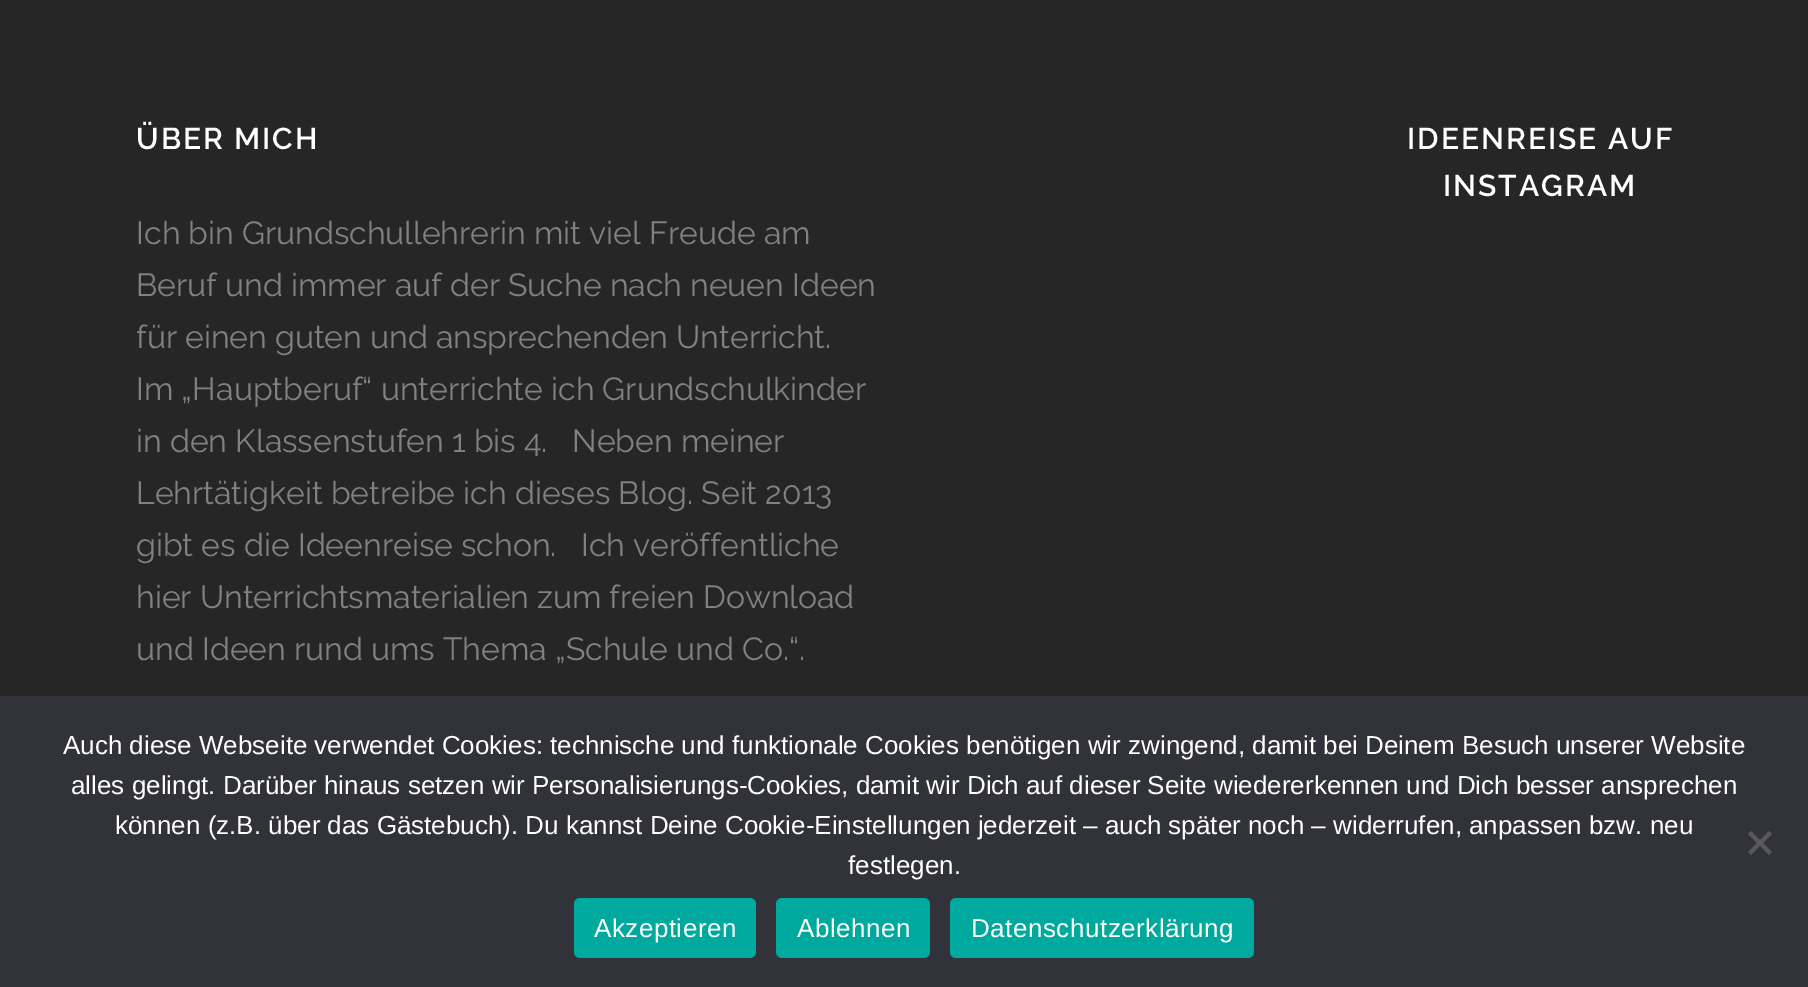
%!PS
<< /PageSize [1808 987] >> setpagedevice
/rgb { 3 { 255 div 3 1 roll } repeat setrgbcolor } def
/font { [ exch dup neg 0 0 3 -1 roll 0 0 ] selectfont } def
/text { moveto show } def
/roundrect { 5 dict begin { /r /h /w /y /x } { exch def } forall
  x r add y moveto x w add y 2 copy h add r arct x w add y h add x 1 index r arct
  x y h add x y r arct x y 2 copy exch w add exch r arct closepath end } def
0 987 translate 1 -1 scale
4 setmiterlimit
38 38 38 rgb
0 0 1808 987 rectfill
50 50 58 rgb
0 696 1808 291 rectfill
89 89 93 rgb
1769 831 moveto 3 3 rlineto -21 21 rlineto -3 -3 rlineto closepath fill
1748 834 moveto 3 -3 rlineto 21 21 rlineto -3 3 rlineto closepath fill
0 169 157 rgb
574 898 182 60 6 roundrect fill
776 898 154 60 6 roundrect fill
950 898 304 60 6 roundrect fill
/Raleway-SemiBold 30 font
255 255 255 rgb
136 149 moveto 2 0 (ÜBER MICH) ashow
/Raleway-Regular 32 font
129 129 129 rgb
(Ich bin Grundschullehrerin mit viel Freude am) 136 244 text
(Beruf und immer auf der Suche nach neuen Ideen) 136 296 text
(für einen guten und ansprechenden Unterricht.) 136 348 text
(Im „Hauptberuf“ unterrichte ich Grundschulkinder) 136 400 text
(in den Klassenstufen 1 bis 4.   Neben meiner) 136 452 text
(Lehrtätigkeit betreibe ich dieses Blog. Seit 2013) 136 504 text
(gibt es die Ideenreise schon.   Ich veröffentliche) 136 556 text
(hier Unterrichtsmaterialien zum freien Download) 136 608 text
(und Ideen rund ums Thema „Schule und Co.“.) 136 660 text
/Raleway-SemiBold 30 font
255 255 255 rgb
1407 149 moveto 2 0 (IDEENREISE AUF) ashow
1443 196 moveto 2 0 (INSTAGRAM) ashow
/LiberationSans-Regular 26 font
(Auch diese Webseite verwendet Cookies: technische und funktionale Cookies benötigen wir zwingend, damit bei Deinem Besuch unserer Website) 63 754 text
(alles gelingt. Darüber hinaus setzen wir Personalisierungs-Cookies, damit wir Dich auf dieser Seite wiedererkennen und Dich besser ansprechen) 71 794 text
(können \(z.B. über das Gästebuch\). Du kannst Deine Cookie-Einstellungen jederzeit – auch später noch – widerrufen, anpassen bzw. neu) 115 834 text
(festlegen.) 848 874 text
594 937 moveto 0.5 0 (Akzeptieren) ashow
797 937 moveto 0.5 0 (Ablehnen) ashow
971 937 moveto 0.5 0 (Datenschutzerklärung) ashow
showpage
